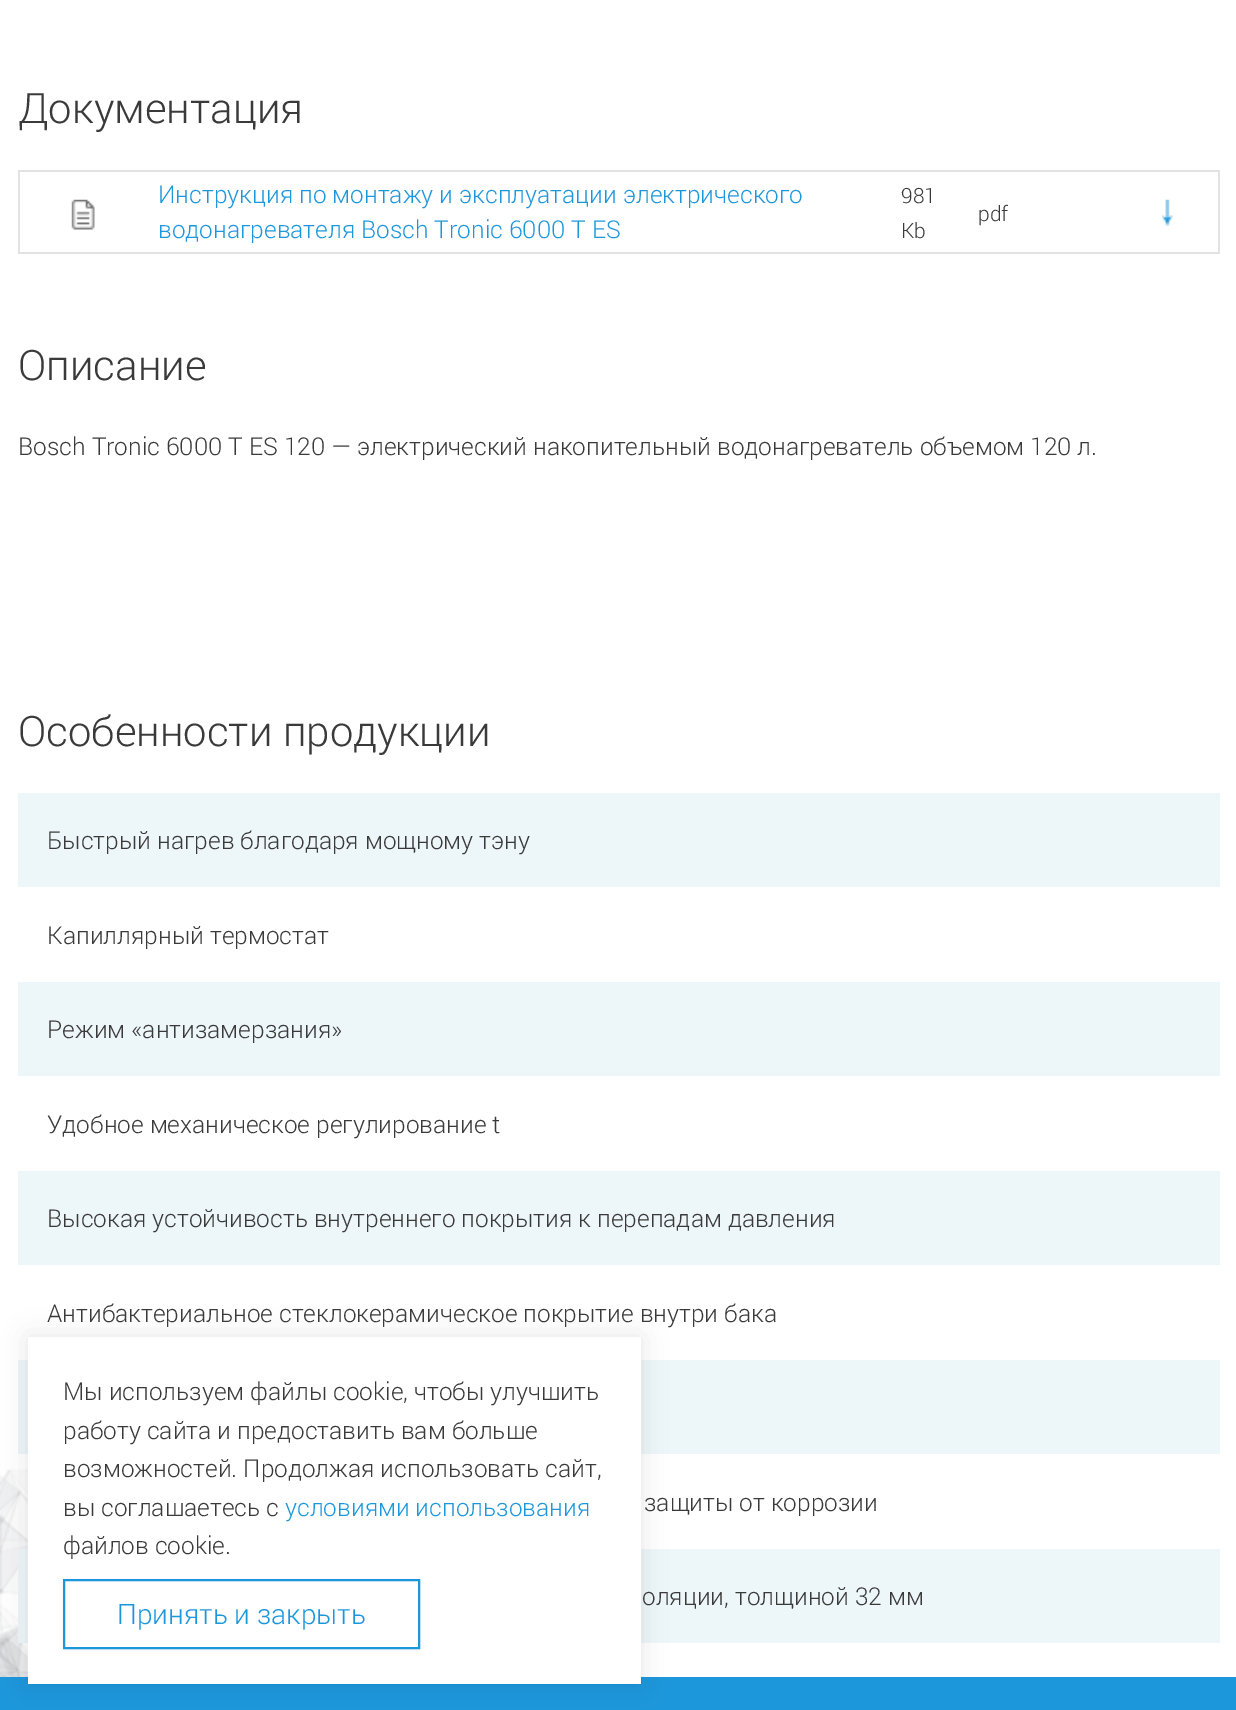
%!PS
<< /PageSize [1236 1710] /PageUsesTransparency true >> setpagedevice
/rgb { 3 { 255 div 3 1 roll } repeat setrgbcolor } def
/font { [ exch dup neg 0 0 3 -1 roll 0 0 ] selectfont } def
/text { moveto show } def
/alpha { dup .setfillconstantalpha .setstrokeconstantalpha } def
/roundrect { 5 dict begin { /r /h /w /y /x } { exch def } forall
  x r add y moveto x w add y 2 copy h add r arct x w add y h add x 1 index r arct
  x y h add x y r arct x y 2 copy exch w add exch r arct closepath end } def
/shadow { 12 dict begin { /a /b /q /h /w /y /x } { exch def } forall gsave /was 0 def
  9 -2 -9 { dup b mul 4 div /e exch def 1 sub .425 mul 2.718 exch exp 1 add a .99 .min exch div /now exch def
    1 1 now sub 1 was sub div sub alpha /was now def
    w h .min e 2 mul add 0 gt { x e sub y e sub w e 2 mul add h e 2 mul add
      q e add b .6 mul add w h .min 2 div e add .min 0 .max roundrect fill } if } for grestore end } def
/picture { 5 dict begin { /h /w /y /x /name } { exch def } forall
  gsave x y translate w h scale
  w h 8 [w 0 0 h 0 0] name (r) file false 3 colorimage grestore end } def
0 .pushpdf14devicefilter
0 1710 translate 1 -1 scale
4 setmiterlimit
255 255 255 rgb
0 0 1236 1710 rectfill
226 226 226 rgb
1218 170 2 84 rectfill
18 252 1202 2 rectfill
18 170 2 84 rectfill
18 170 1202 2 rectfill
(img_01.rgb) 1162 199 11 27 picture
(img_02.rgb) 71 199 24 31 picture
(img_03.rgb) 0 1469 28 208 picture
237 246 249 rgb
18 793 1202 94 rectfill
18 982 1202 94 rectfill
18 1171 1202 94 rectfill
18 1360 1202 94 rectfill
18 1549 1202 94 rectfill
29 151 219 rgb
0 1677 1236 33 rectfill
0 0 0 rgb
28 1337 613 347 0 13 0.1 shadow
255 255 255 rgb
28 1337 613 347 rectfill
0 0 0 rgb
63 1580 357 70 0 2 0.05 shadow
255 255 255 rgb
64 1580 moveto 355 0 rlineto 0 68 rlineto -355 0 rlineto closepath gsave fill grestore
29 151 219 rgb
2 setlinewidth
stroke
/Roboto-Light 42 font
58 58 58 rgb
(Документация) 18 123 text
/Roboto-Light 24.5 font
29 151 219 rgb
(Инструкция по монтажу и эксплуатации электрического) 158 203 text
(водонагревателя Bosch Tronic 6000 T ES) 158 238 text
/Roboto-Light 21 font
58 58 58 rgb
(981) 901 203 text
(Kb) 901 238 text
(pdf) 978 221 text
/Roboto-Light 42 font
(Описание) 18 380 text
/Roboto-Light 24.5 font
(Bosch Tronic 6000 T ES 120 — электрический накопительный водонагреватель объемом 120 л.) 18 455 text
/Roboto-Light 42 font
(Особенности продукции) 18 746 text
/Roboto-Light 24.5 font
(Быстрый нагрев благодаря мощному тэну) 47 849 text
(Капиллярный термостат) 47 944 text
(Режим «антизамерзания») 47 1038 text
(Удобное механическое регулирование t) 47 1133 text
(Высокая устойчивость внутреннего покрытия к перепадам давления) 47 1227 text
(Антибактериальное cтеклокерамическое покрытие внутри бака) 47 1322 text
(защиты от коррозии) 644 1511 text
(оляции, толщиной 32 мм) 642 1605 text
(Мы используем файлы cookie, чтобы улучшить) 63 1400 text
(работу сайта и предоставить вам больше) 63 1439 text
(возможностей. Продолжая использовать сайт,) 63 1477 text
(вы соглашаетесь с) 63 1516 text
29 151 219 rgb
(условиями использования) 285 1516 text
58 58 58 rgb
(файлов cookie.) 63 1554 text
/Roboto-Light 28 font
29 151 219 rgb
(Принять и закрыть) 117 1624 text
.poppdf14devicefilter showpage
